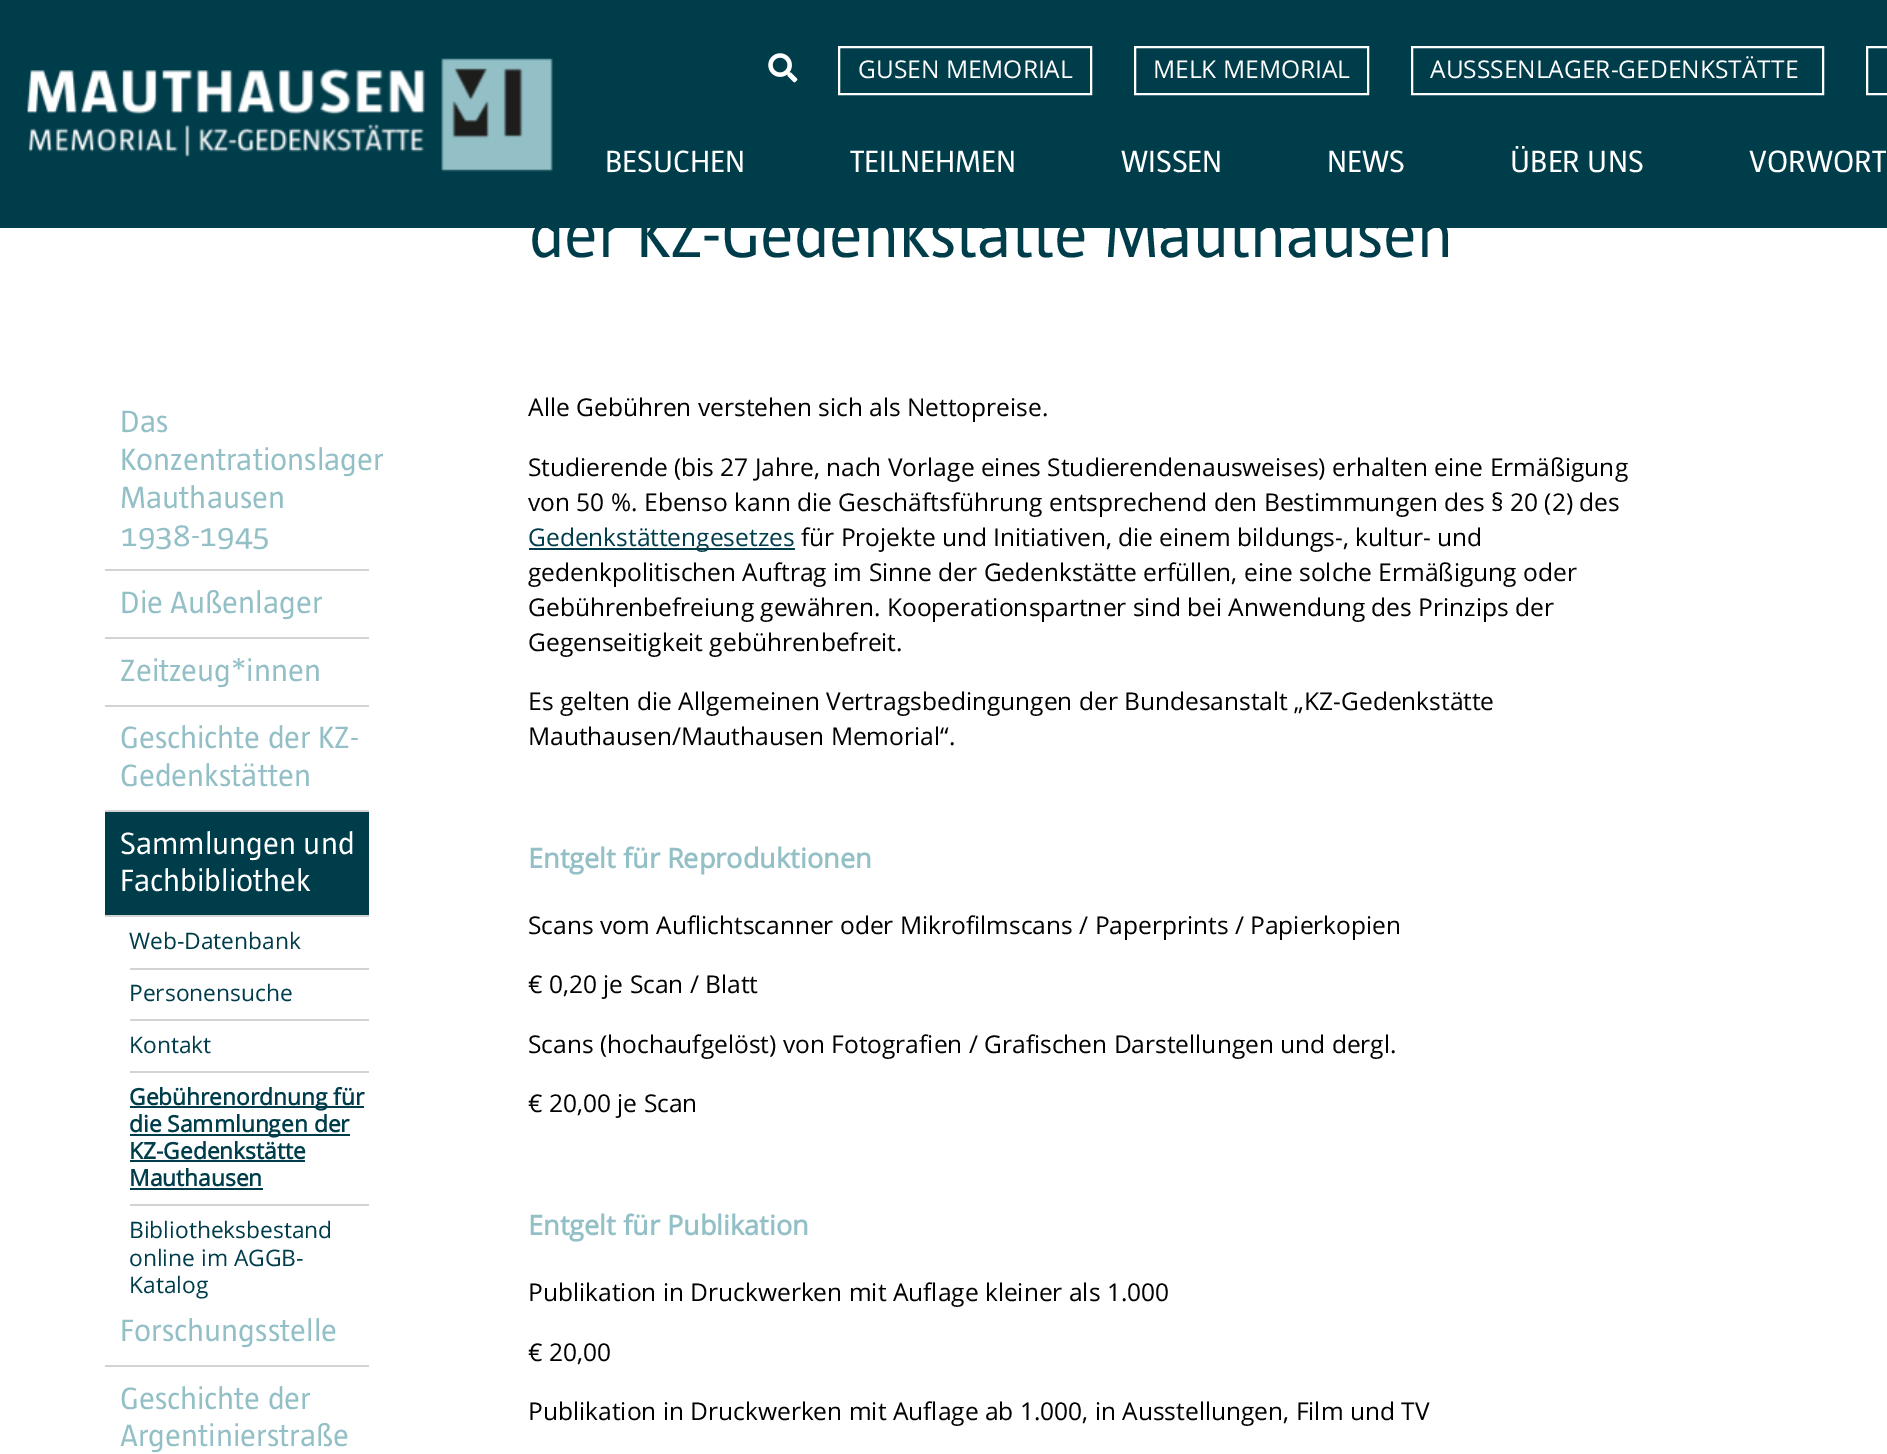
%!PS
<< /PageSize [1887 1454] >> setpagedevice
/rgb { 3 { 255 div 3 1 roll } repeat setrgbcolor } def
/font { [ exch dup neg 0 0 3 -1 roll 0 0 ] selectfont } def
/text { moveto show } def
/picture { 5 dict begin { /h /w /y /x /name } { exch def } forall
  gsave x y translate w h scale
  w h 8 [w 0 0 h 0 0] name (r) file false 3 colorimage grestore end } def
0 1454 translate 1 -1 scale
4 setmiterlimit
255 255 255 rgb
0 0 1887 1454 rectfill
0 61 75 rgb
0 0 1887 228 rectfill
(img_01.rgb) 27 58 526 114 picture
(img_02.rgb) 768 53 30 30 picture
255 255 255 rgb
2 setlinewidth
839 47 252 47 rectstroke
1135 47 233 47 rectstroke
1412 47 411 47 rectstroke
1867 47 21 47 rectstroke
211 211 211 rgb
105 569 264 2 rectfill
105 637 264 2 rectfill
105 705 264 2 rectfill
105 810 264 2 rectfill
0 61 75 rgb
105 812 264 103 rectfill
211 211 211 rgb
105 915 264 2 rectfill
130 968 239 2 rectfill
130 1019 239 2 rectfill
130 1071 239 2 rectfill
130 1204 239 2 rectfill
0 61 75 rgb
130 1106 234 2 rectfill
130 1134 220 2 rectfill
130 1160 175 2 rectfill
130 1188 133 2 rectfill
211 211 211 rgb
105 1365 264 2 rectfill
0 61 75 rgb
529 548 266 2 rectfill
/OpenSans-Regular 24.5 font
255 255 255 rgb
(GUSEN MEMORIAL) 858 78 text
(MELK MEMORIAL) 1153 78 text
(AUSSSENLAGER-GEDENKSTÄTTE) 1430 78 text
/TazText-Regular 31.5 font
(BESUCHEN) 605 172 text
(TEILNEHMEN) 850 172 text
(WISSEN) 1121 172 text
(NEWS) 1327 172 text
(ÜBER UNS) 1510 172 text
(VORWORT) 1749 172 text
/TazText-Regular 66.5 font
0 61 75 rgb
(der KZ-Gedenkstätte Mauthausen) 529 257 text
/TazText-Regular 31.5 font
147 191 198 rgb
(Das) 120 432 text
(Konzentrationslager) 120 470 text
(Mauthausen) 120 508 text
(1938-1945) 120 546 text
(Die Außenlager) 120 613 text
(Zeitzeug*innen) 120 681 text
(Geschichte der KZ-) 120 748 text
(Gedenkstätten) 120 786 text
255 255 255 rgb
(Sammlungen und) 120 854 text
(Fachbibliothek) 120 891 text
/OpenSans-Regular 22.75 font
0 61 75 rgb
(Web-Datenbank) 129 949 text
(Personensuche) 129 1001 text
(Kontakt) 129 1053 text
/OpenSans-Bold 22.75 font
(Gebührenordnung für) 129 1105 text
(die Sammlungen der) 129 1132 text
(KZ-Gedenkstätte) 129 1159 text
(Mauthausen) 129 1186 text
/OpenSans-Regular 22.75 font
(Bibliotheksbestand) 129 1238 text
(online im AGGB-) 129 1266 text
(Katalog) 129 1293 text
/TazText-Regular 31.5 font
147 191 198 rgb
(Forschungsstelle) 120 1341 text
(Geschichte der) 120 1409 text
(Argentinierstraße) 120 1446 text
/OpenSans-Regular 24.5 font
0 0 0 rgb
(Alle Gebühren verstehen sich als Nettopreise.) 528 416 text
(Studierende \(bis 27 Jahre, nach Vorlage eines Studierendenausweises\) erhalten eine Ermäßigung) 528 476 text
(von 50 %. Ebenso kann die Geschäftsführung entsprechend den Bestimmungen des § 20 \(2\) des) 528 511 text
0 61 75 rgb
(Gedenkstättengesetzes) 528 546 text
0 0 0 rgb
(für Projekte und Initiativen, die einem bildungs-, kultur- und) 801 546 text
(gedenkpolitischen Auftrag im Sinne der Gedenkstätte erfüllen, eine solche Ermäßigung oder) 528 581 text
(Gebührenbefreiung gewähren. Kooperationspartner sind bei Anwendung des Prinzips der) 528 616 text
(Gegenseitigkeit gebührenbefreit.) 528 651 text
(Es gelten die Allgemeinen Vertragsbedingungen der Bundesanstalt „KZ-Gedenkstätte) 528 710 text
(Mauthausen/Mauthausen Memorial“.) 528 745 text
/OpenSans-Bold 27.1 font
147 191 198 rgb
(Entgelt für Reproduktionen) 528 868 text
/OpenSans-Regular 24.5 font
0 0 0 rgb
(Scans vom Auflichtscanner oder Mikrofilmscans / Paperprints / Papierkopien) 528 934 text
(€ 0,20 je Scan / Blatt) 528 993 text
(Scans \(hochaufgelöst\) von Fotografien / Grafischen Darstellungen und dergl.) 528 1053 text
(€ 20,00 je Scan) 528 1112 text
/OpenSans-Bold 27.1 font
147 191 198 rgb
(Entgelt für Publikation) 528 1235 text
/OpenSans-Regular 24.5 font
0 0 0 rgb
(Publikation in Druckwerken mit Auflage kleiner als 1.000) 528 1301 text
(€ 20,00) 528 1361 text
(Publikation in Druckwerken mit Auflage ab 1.000, in Ausstellungen, Film und TV) 528 1420 text
showpage
